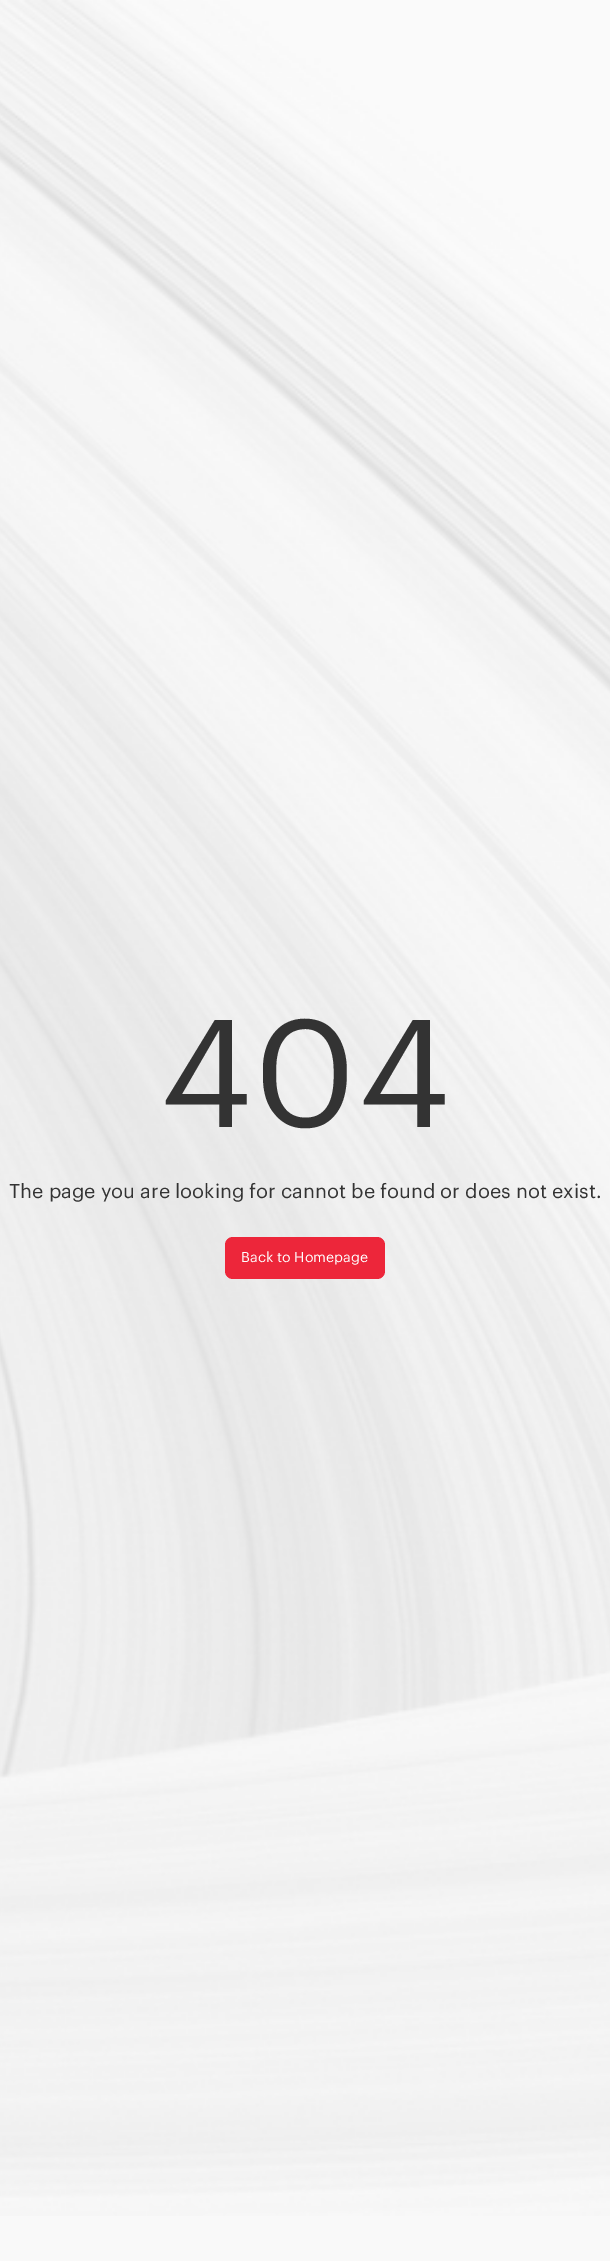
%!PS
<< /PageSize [610 2261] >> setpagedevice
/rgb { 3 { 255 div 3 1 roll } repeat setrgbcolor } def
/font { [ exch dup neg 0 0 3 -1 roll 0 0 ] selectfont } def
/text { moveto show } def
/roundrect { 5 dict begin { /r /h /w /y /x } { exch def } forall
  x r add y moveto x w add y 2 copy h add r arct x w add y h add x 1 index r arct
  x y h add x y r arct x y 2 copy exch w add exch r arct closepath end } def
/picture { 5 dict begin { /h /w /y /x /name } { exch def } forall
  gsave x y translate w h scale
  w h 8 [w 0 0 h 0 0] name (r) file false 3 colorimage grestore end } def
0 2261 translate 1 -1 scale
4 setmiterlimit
249 249 249 rgb
0 0 610 2261 rectfill
(img_01.rgb) 0 0 610 2216 picture
237 38 58 rgb
225 1237 160 42 8 roundrect fill
/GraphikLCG-Regular 150 font
51 51 51 rgb
(404) 159 1127 text
/GraphikLCG-Regular 19.5 font
(The page you are looking for cannot be found or does not exist.) 9 1198 text
/GraphikLCG-Regular 14 font
255 255 255 rgb
(Back to Homepage) 241 1262 text
showpage
